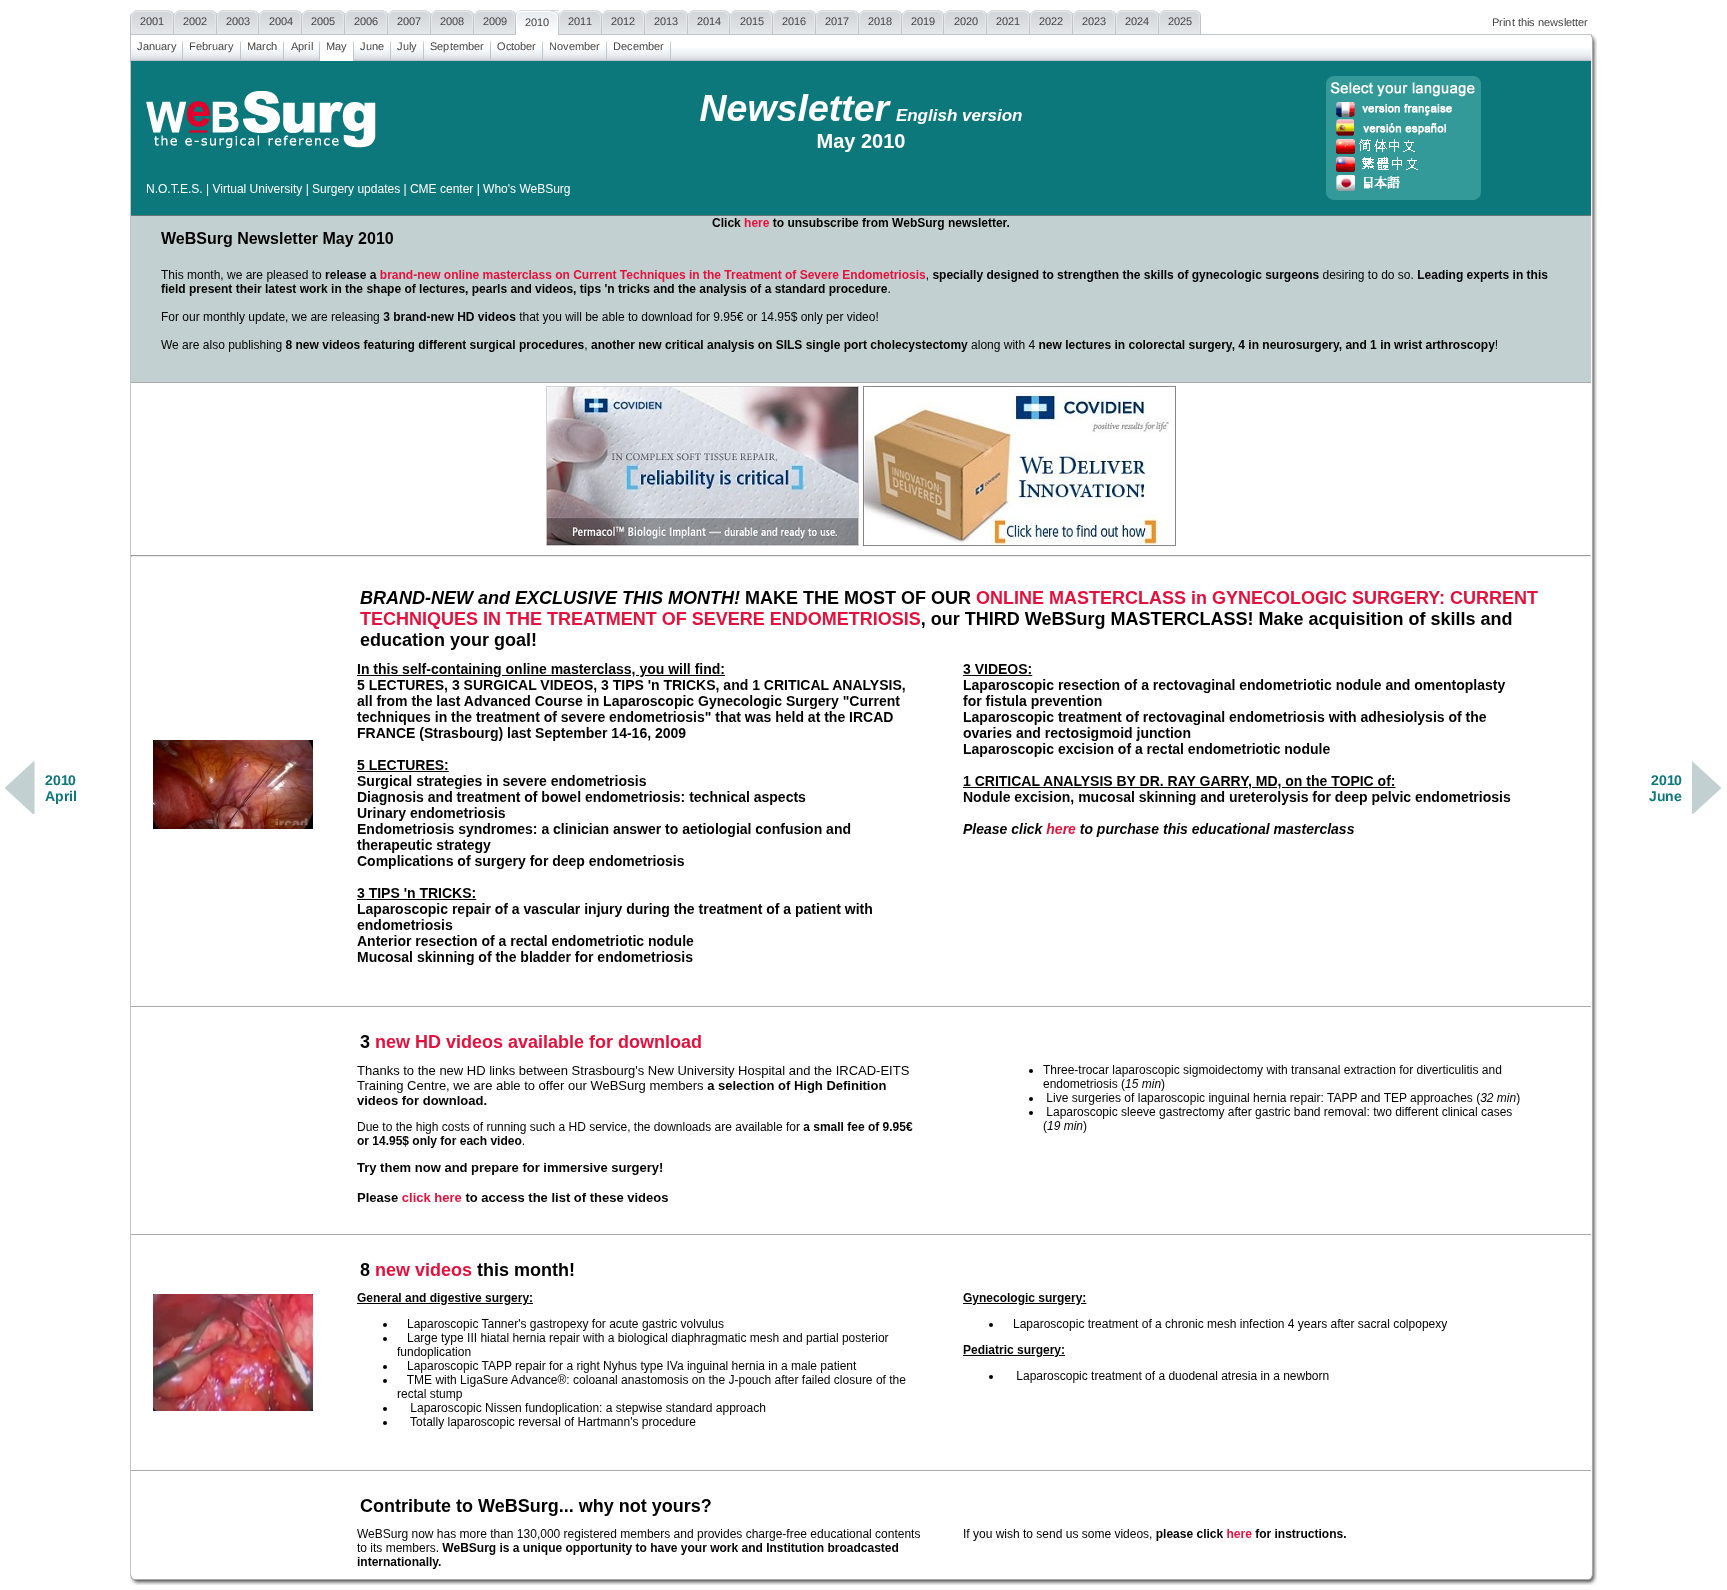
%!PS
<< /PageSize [1727 1590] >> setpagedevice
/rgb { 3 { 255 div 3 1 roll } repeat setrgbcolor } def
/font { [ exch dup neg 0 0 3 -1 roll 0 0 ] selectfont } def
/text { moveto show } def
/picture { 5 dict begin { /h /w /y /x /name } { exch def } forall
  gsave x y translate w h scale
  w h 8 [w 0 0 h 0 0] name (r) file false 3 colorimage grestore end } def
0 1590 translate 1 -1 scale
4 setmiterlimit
255 255 255 rgb
0 0 1727 1590 rectfill
(img_01.rgb) 5 761 30 53 picture
192 197 202 rgb
130 34 386 1 rectfill
(img_02.rgb) 130 13 1 21 picture
(img_03.rgb) 131 10 37 24 picture
(img_04.rgb) 168 10 6 24 picture
(img_03.rgb) 174 10 37 24 picture
(img_04.rgb) 211 10 6 24 picture
(img_05.rgb) 217 10 36 24 picture
(img_04.rgb) 253 10 6 24 picture
(img_03.rgb) 259 10 37 24 picture
(img_04.rgb) 296 10 6 24 picture
(img_03.rgb) 302 10 37 24 picture
(img_04.rgb) 339 10 6 24 picture
(img_03.rgb) 345 10 37 24 picture
(img_04.rgb) 382 10 6 24 picture
(img_03.rgb) 388 10 37 24 picture
(img_04.rgb) 425 10 6 24 picture
(img_03.rgb) 431 10 37 24 picture
(img_04.rgb) 468 10 6 24 picture
(img_05.rgb) 474 10 36 24 picture
(img_04.rgb) 510 10 6 24 picture
(img_06.rgb) 516 10 43 19 picture
(img_07.rgb) 551 11 8 24 picture
(img_03.rgb) 559 10 37 24 picture
559 34 1032 1 rectfill
(img_04.rgb) 596 10 6 24 picture
(img_03.rgb) 602 10 37 24 picture
(img_04.rgb) 639 10 6 24 picture
(img_03.rgb) 645 10 37 24 picture
(img_04.rgb) 682 10 6 24 picture
(img_05.rgb) 688 10 36 24 picture
(img_04.rgb) 724 10 6 24 picture
(img_03.rgb) 730 10 37 24 picture
(img_04.rgb) 767 10 6 24 picture
(img_03.rgb) 773 10 37 24 picture
(img_04.rgb) 810 10 6 24 picture
(img_03.rgb) 816 10 37 24 picture
(img_04.rgb) 853 10 6 24 picture
(img_03.rgb) 859 10 37 24 picture
(img_04.rgb) 896 10 6 24 picture
(img_05.rgb) 902 10 36 24 picture
(img_04.rgb) 938 10 6 24 picture
(img_03.rgb) 944 10 37 24 picture
(img_04.rgb) 981 10 6 24 picture
(img_03.rgb) 987 10 37 24 picture
(img_04.rgb) 1024 10 6 24 picture
(img_03.rgb) 1030 10 37 24 picture
(img_04.rgb) 1067 10 6 24 picture
(img_03.rgb) 1073 10 37 24 picture
(img_04.rgb) 1110 10 6 24 picture
(img_03.rgb) 1116 10 37 24 picture
(img_04.rgb) 1153 10 6 24 picture
(img_05.rgb) 1159 10 36 24 picture
(img_04.rgb) 1195 10 6 24 picture
(img_08.rgb) 131 48 1460 13 picture
130 35 1 1540 rectfill
(img_09.rgb) 182 41 1 20 picture
(img_09.rgb) 240 41 1 20 picture
(img_09.rgb) 283 41 1 20 picture
(img_09.rgb) 319 41 1 20 picture
(img_09.rgb) 353 41 1 20 picture
255 255 255 rgb
320 48 33 13 rectfill
(img_09.rgb) 390 41 1 20 picture
(img_09.rgb) 423 41 1 20 picture
(img_09.rgb) 490 41 1 20 picture
(img_09.rgb) 542 41 1 20 picture
(img_09.rgb) 606 41 1 20 picture
(img_09.rgb) 670 41 1 20 picture
(img_10.rgb) 131 61 1460 1508 picture
(img_11.rgb) 1591 43 6 1532 picture
(img_12.rgb) 1591 34 6 9 picture
(img_13.rgb) 1692 761 30 53 picture
(img_14.rgb) 138 1579 1451 6 picture
(img_15.rgb) 130 1575 8 10 picture
(img_16.rgb) 1589 1575 8 10 picture
/LiberationSans-Bold 14 font
12 120 123 rgb
(2010) 45 785 text
(April) 45 801 text
/LiberationSans-Regular 11 font
68 68 68 rgb
(2001) 140 25 text
(2002) 183 25 text
(2003) 226 25 text
(2004) 269 25 text
(2005) 311 25 text
(2006) 354 25 text
(2007) 397 25 text
(2008) 440 25 text
(2009) 483 25 text
(2010) 525 26 text
(2011) 568 25 text
(2012) 611 25 text
(2013) 654 25 text
(2014) 697 25 text
(2015) 740 25 text
(2016) 782 25 text
(2017) 825 25 text
(2018) 868 25 text
(2019) 911 25 text
(2020) 954 25 text
(2021) 996 25 text
(2022) 1039 25 text
(2023) 1082 25 text
(2024) 1125 25 text
(2025) 1168 25 text
(Print this newsletter) 1492 26 text
(January) 137 50 text
(February) 189 50 text
(March) 247 50 text
(April) 291 50 text
(May) 326 50 text
(June) 360 50 text
(July) 397 50 text
(September) 430 50 text
(October) 497 50 text
(November) 549 50 text
(December) 613 50 text
/LiberationSans-Bold 14 font
12 120 123 rgb
(2010) 1651 785 text
(June) 1649 801 text
showpage
